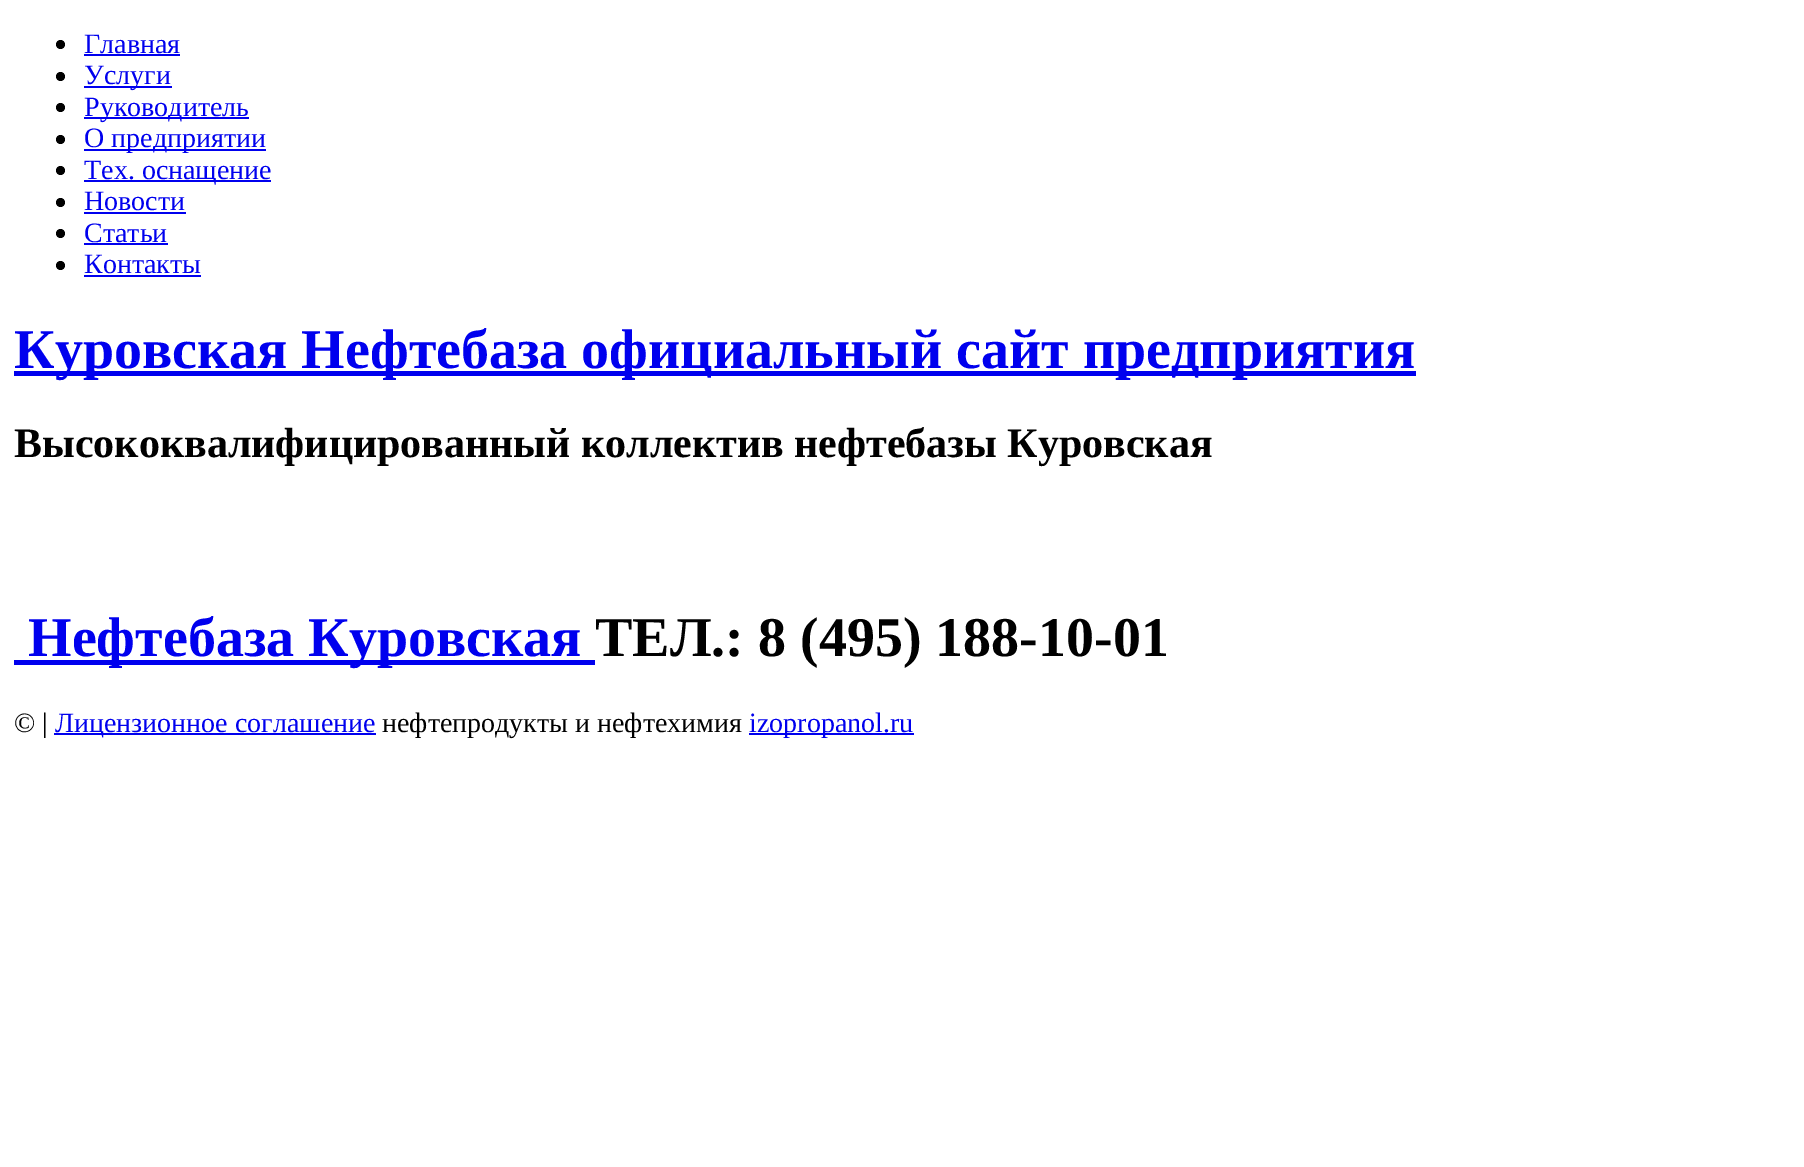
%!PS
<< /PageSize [1804 1167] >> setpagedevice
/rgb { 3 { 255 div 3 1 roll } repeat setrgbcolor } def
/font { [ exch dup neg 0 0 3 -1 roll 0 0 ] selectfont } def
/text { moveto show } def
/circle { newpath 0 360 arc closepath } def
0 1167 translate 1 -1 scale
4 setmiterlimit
255 255 255 rgb
0 0 1804 1167 rectfill
0 0 0 rgb
60.5 44.5 4.5 circle fill
0 0 238 rgb
84 54 96 2 rectfill
0 0 0 rgb
60.5 76.5 4.5 circle fill
0 0 238 rgb
84 86 88 2 rectfill
0 0 0 rgb
60.5 107.5 4.5 circle fill
0 0 238 rgb
84 117 165 2 rectfill
0 0 0 rgb
60.5 139.5 4.5 circle fill
0 0 238 rgb
84 149 182 2 rectfill
0 0 0 rgb
60.5 170.5 4.5 circle fill
0 0 238 rgb
84 180 187 2 rectfill
0 0 0 rgb
60.5 202.5 4.5 circle fill
0 0 238 rgb
84 212 102 2 rectfill
0 0 0 rgb
60.5 233.5 4.5 circle fill
0 0 238 rgb
84 243 84 2 rectfill
0 0 0 rgb
60.5 265.5 4.5 circle fill
0 0 238 rgb
84 275 117 2 rectfill
14 371 1402 5 rectfill
14 660 581 5 rectfill
54 733 322 2 rectfill
749 733 165 2 rectfill
/LiberationSerif-Regular 28 font
(Главная) 84 53 text
(Услуги) 84 84 text
(Руководитель) 84 116 text
(O предприятии) 84 147 text
(Тех. оснащение) 84 179 text
(Новости) 84 210 text
(Статьи) 84 242 text
(Контакты) 84 273 text
/LiberationSerif-Bold 56 font
(Куровская Нефтебаза официальный сайт предприятия) 14 368 text
/LiberationSerif-Bold 42 font
0 0 0 rgb
(Высококвалифицированный коллектив нефтебазы Куровская) 14 457 text
/LiberationSerif-Bold 56 font
0 0 238 rgb
(Нефтебаза Куровская) 28 656 text
0 0 0 rgb
(ТЕЛ.: 8 \(495\) 188-10-01) 595 656 text
/LiberationSerif-Regular 28 font
(© |) 14 732 text
0 0 238 rgb
(Лицензионное соглашение) 55 732 text
0 0 0 rgb
(нефтепродукты и нефтехимия) 382 732 text
0 0 238 rgb
(izopropanol.ru) 749 732 text
showpage
